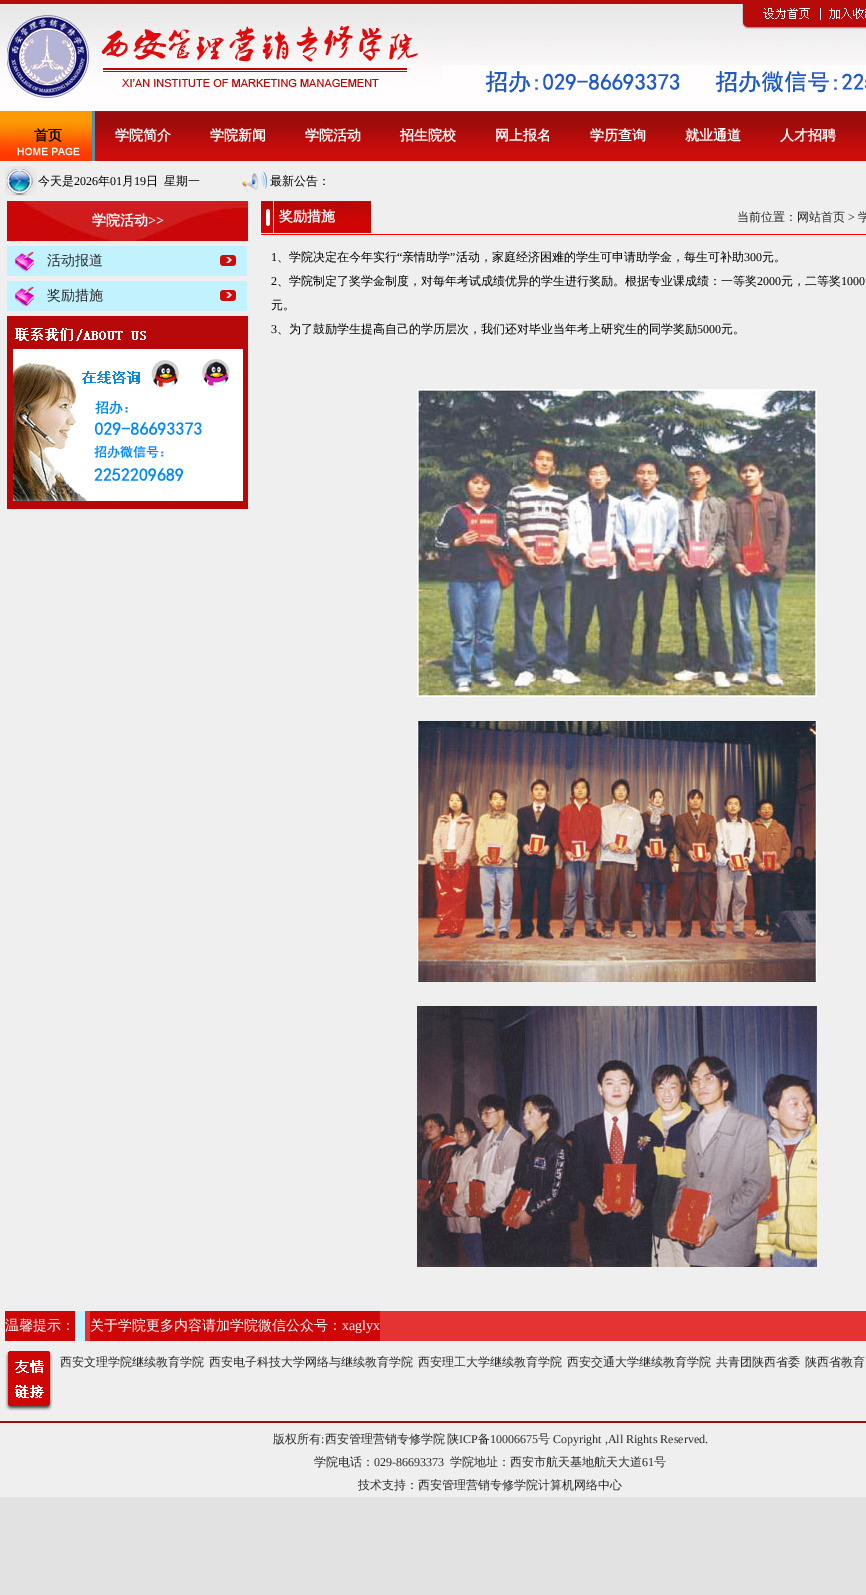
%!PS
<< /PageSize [866 1595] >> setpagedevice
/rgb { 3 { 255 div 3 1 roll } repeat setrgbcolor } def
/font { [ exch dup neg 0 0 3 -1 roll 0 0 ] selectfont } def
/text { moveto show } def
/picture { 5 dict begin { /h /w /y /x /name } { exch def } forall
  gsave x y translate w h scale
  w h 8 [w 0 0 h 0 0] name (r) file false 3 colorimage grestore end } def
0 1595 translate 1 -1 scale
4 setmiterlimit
226 226 226 rgb
0 0 866 1595 rectfill
239 239 239 rgb
0 161 866 1336 rectfill
(img_01.rgb) 0 0 866 111 picture
(img_02.rgb) 95 111 771 50 picture
(img_03.rgb) 0 111 95 50 picture
(img_04.rgb) 5 166 32 30 picture
(img_05.rgb) 242 171 25 22 picture
(img_06.rgb) 7 201 241 40 picture
(img_07.rgb) 7 246 240 30 picture
(img_07.rgb) 7 281 240 30 picture
(img_08.rgb) 7 316 241 193 picture
(img_09.rgb) 261 201 110 32 picture
255 0 0 rgb
261 234 605 1 rectfill
(img_10.rgb) 417 389 400 308 picture
(img_11.rgb) 417 721 400 261 picture
(img_12.rgb) 417 1006 400 261 picture
207 6 6 rgb
5 1311 70 30 rectfill
195 242 255 rgb
75 1311 10 30 rectfill
229 51 51 rgb
85 1311 781 30 rectfill
207 6 6 rgb
90 1311 290 30 rectfill
(img_13.rgb) 5 1351 48 60 picture
161 11 11 rgb
0 1421 866 2 rectfill
/WenQuanYiZenHei-Bold 14 font
0 0 0 rgb
(首页) 34 140 text
255 255 255 rgb
(学院简介) 115 140 text
(学院新闻) 210 140 text
(学院活动) 305 140 text
(招生院校) 400 140 text
(网上报名) 495 140 text
(学历查询) 590 140 text
(就业通道) 685 140 text
(人才招聘) 780 140 text
/WenQuanYiZenHei-Medium 12 font
0 0 0 rgb
(今天是) 38 185 text
/LiberationSerif-Regular 12 font
(2026) 74 185 text
/WenQuanYiZenHei-Medium 12 font
(年) 98 185 text
/LiberationSerif-Regular 12 font
(01) 110 185 text
/WenQuanYiZenHei-Medium 12 font
(月) 122 185 text
/LiberationSerif-Regular 12 font
(19) 134 185 text
/WenQuanYiZenHei-Medium 12 font
(日) 146 185 text
(星期一) 164 185 text
(最新公告：) 270 185 text
/WenQuanYiZenHei-Bold 14 font
255 255 255 rgb
(学院活动) 92 225 text
/LiberationSerif-Bold 14 font
(>>) 148 225 text
/WenQuanYiZenHei-Medium 14 font
43 43 43 rgb
(活动报道) 47 265 text
(奖励措施) 47 300 text
/WenQuanYiZenHei-Bold 14 font
255 255 255 rgb
(奖励措施) 279 221 text
/WenQuanYiZenHei-Medium 12 font
43 43 43 rgb
(当前位置：网站首页) 737 221 text
/LiberationSerif-Regular 12 font
(>) 848 221 text
/WenQuanYiZenHei-Medium 12 font
(学) 858 221 text
/LiberationSerif-Regular 12 font
0 0 0 rgb
(1) 271 261 text
/WenQuanYiZenHei-Medium 12 font
(、学院决定在今年实行) 277 261 text
/LiberationSerif-Regular 12 font
(“) 397 261 text
/WenQuanYiZenHei-Medium 12 font
(亲情助学) 402 261 text
/LiberationSerif-Regular 12 font
(”) 450 261 text
/WenQuanYiZenHei-Medium 12 font
(活动，家庭经济困难的学生可申请助学金，每生可补助) 456 261 text
/LiberationSerif-Regular 12 font
(300) 744 261 text
/WenQuanYiZenHei-Medium 12 font
(元。) 762 261 text
/LiberationSerif-Regular 12 font
(2) 271 285 text
/WenQuanYiZenHei-Medium 12 font
(、学院制定了奖学金制度，对每年考试成绩优异的学生进行奖励。根据专业课成绩：一等奖) 277 285 text
/LiberationSerif-Regular 12 font
(2000) 757 285 text
/WenQuanYiZenHei-Medium 12 font
(元，二等奖) 781 285 text
/LiberationSerif-Regular 12 font
(1000) 841 285 text
/WenQuanYiZenHei-Medium 12 font
(元。) 271 309 text
/LiberationSerif-Regular 12 font
(3) 271 333 text
/WenQuanYiZenHei-Medium 12 font
(、为了鼓励学生提高自己的学历层次，我们还对毕业当年考上研究生的同学奖励) 277 333 text
/LiberationSerif-Regular 12 font
(5000) 697 333 text
/WenQuanYiZenHei-Medium 12 font
(元。) 721 333 text
/WenQuanYiZenHei-Medium 14 font
255 255 255 rgb
(温馨提示：) 5 1330 text
(关于学院更多内容请加学院微信公众号：) 90 1330 text
/LiberationSerif-Regular 14 font
(xaglyx) 342 1330 text
/WenQuanYiZenHei-Medium 12 font
43 43 43 rgb
(西安文理学院继续教育学院) 60 1366 text
(西安电子科技大学网络与继续教育学院) 209 1366 text
(西安理工大学继续教育学院) 418 1366 text
(西安交通大学继续教育学院) 567 1366 text
(共青团陕西省委) 716 1366 text
(陕西省教育) 805 1366 text
(版权所有 西安管理营销专修学院) 273 1443 text
(陕) 447 1443 text
/LiberationSerif-Regular 12 font
(ICP) 459 1443 text
/WenQuanYiZenHei-Medium 12 font
(备) 478 1443 text
/LiberationSerif-Regular 12 font
(10006675) 490 1443 text
/WenQuanYiZenHei-Medium 12 font
(号) 538 1443 text
/LiberationSerif-Regular 12 font
(Copyright ,All Rights Reserved.) 553 1443 text
(:) 321 1443 text
/WenQuanYiZenHei-Medium 12 font
(学院电话：) 314 1466 text
/LiberationSerif-Regular 12 font
(029-86693373) 374 1466 text
/WenQuanYiZenHei-Medium 12 font
(学院地址：西安市航天基地航天大道) 450 1466 text
/LiberationSerif-Regular 12 font
(61) 642 1466 text
/WenQuanYiZenHei-Medium 12 font
(号) 654 1466 text
(技术支持：西安管理营销专修学院计算机网络中心) 358 1489 text
showpage
